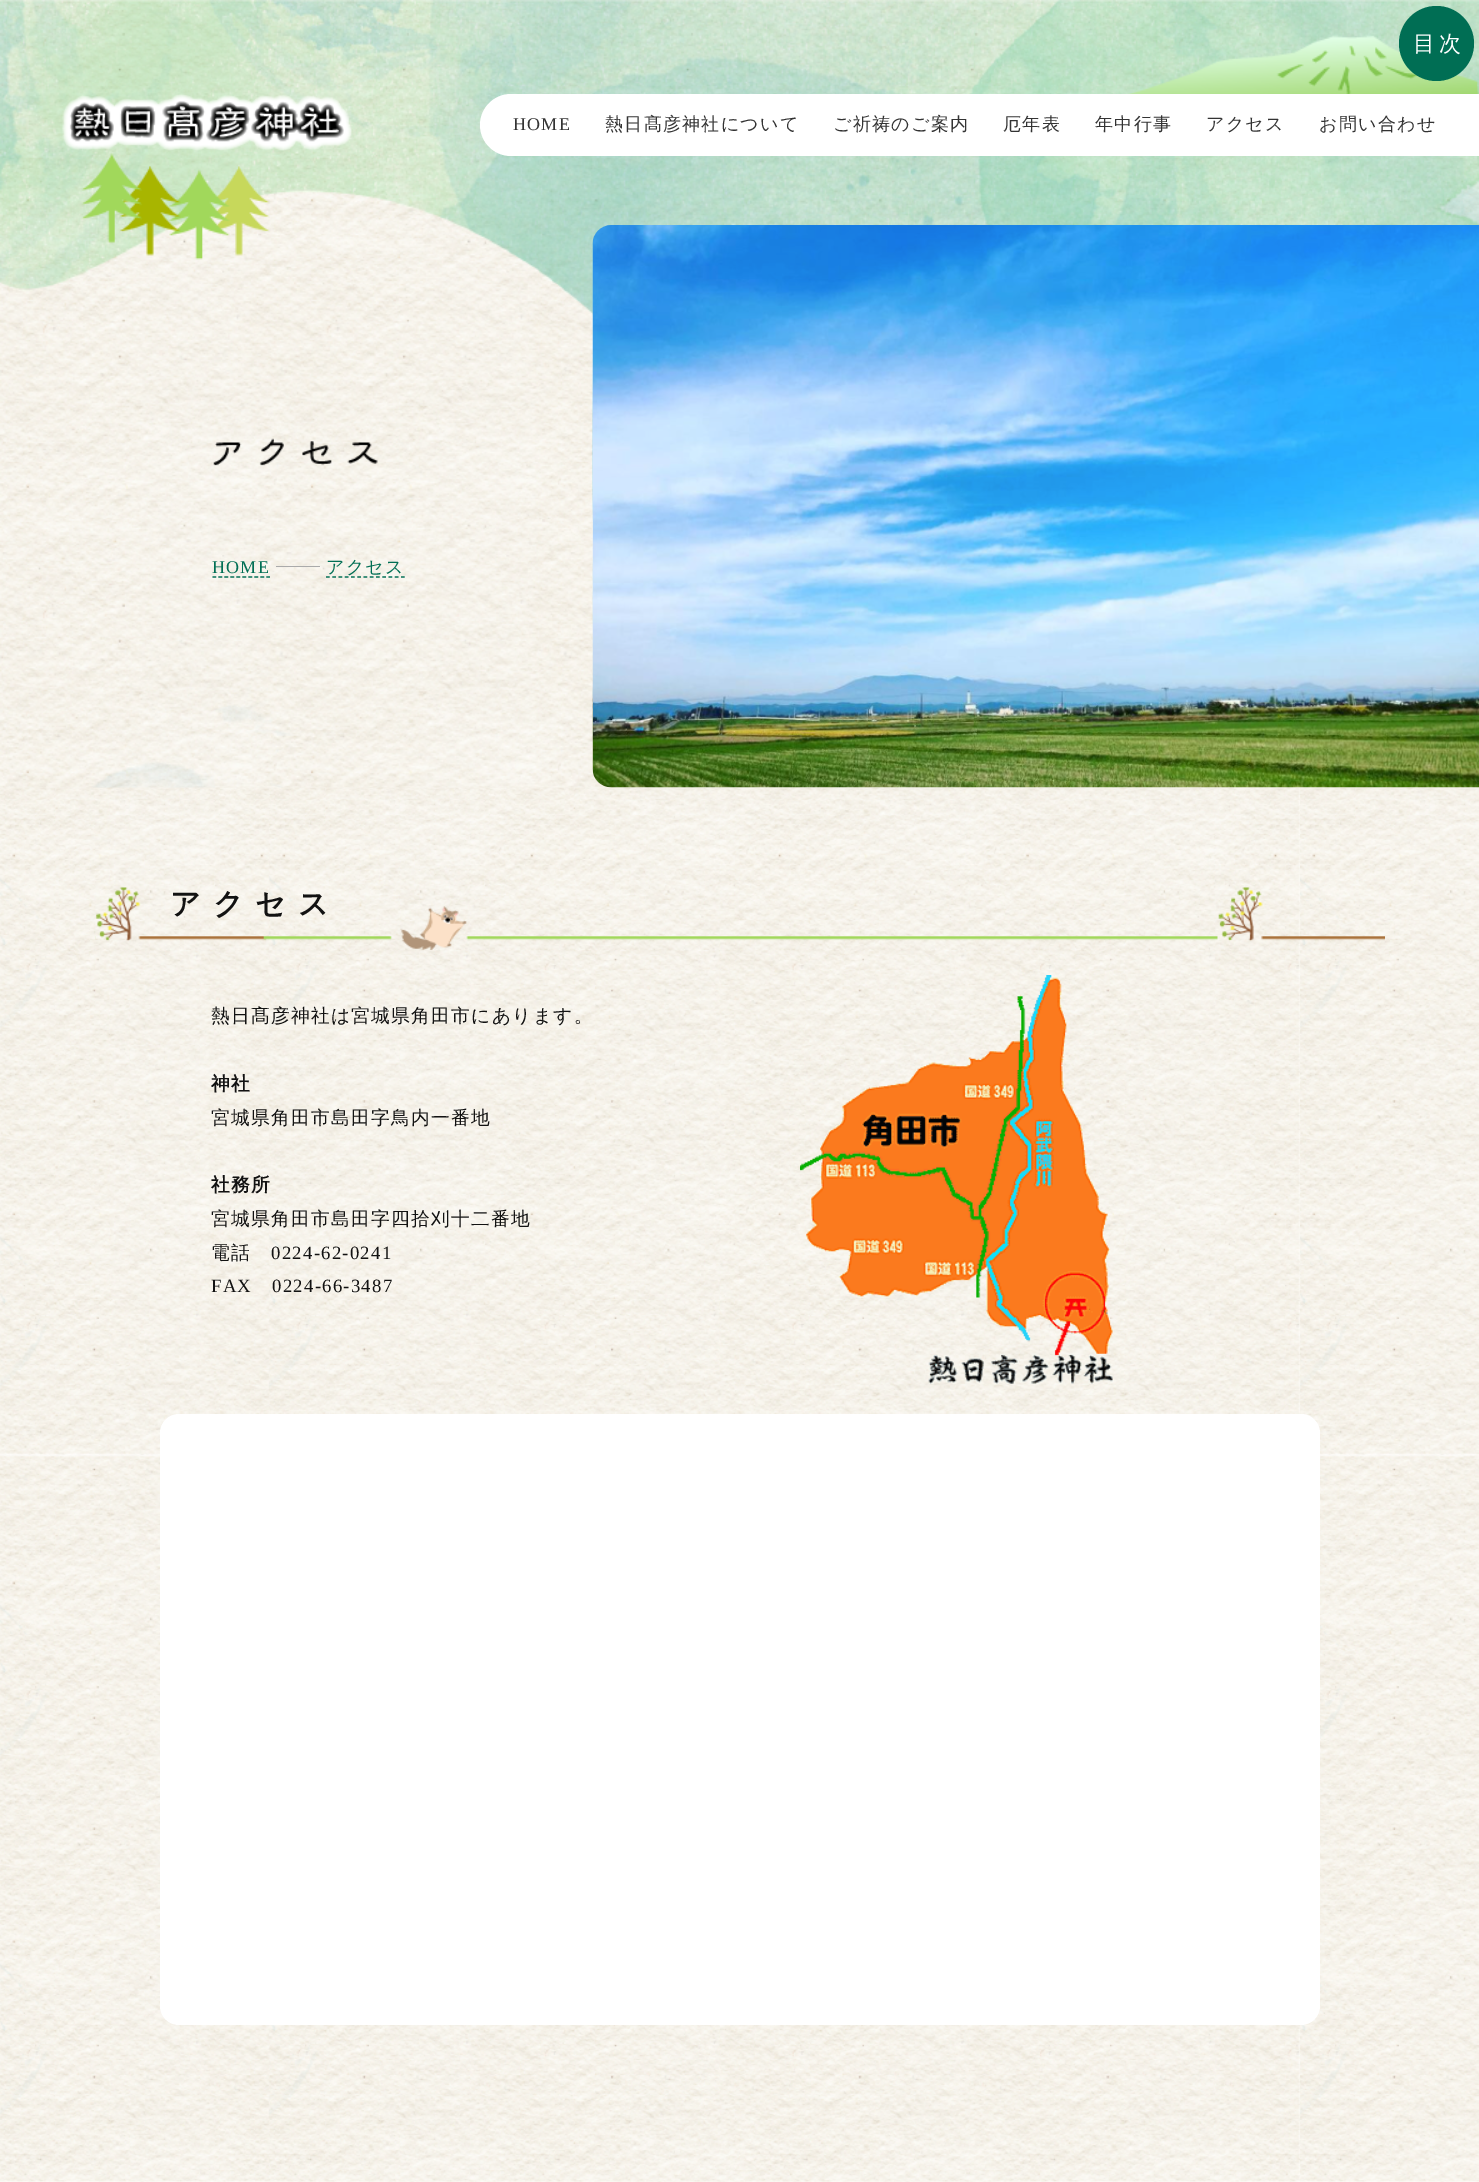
%!PS
<< /PageSize [1479 2182] >> setpagedevice
/rgb { 3 { 255 div 3 1 roll } repeat setrgbcolor } def
/font { [ exch dup neg 0 0 3 -1 roll 0 0 ] selectfont } def
/circle { newpath 0 360 arc closepath } def
/roundrect { 5 dict begin { /r /h /w /y /x } { exch def } forall
  x r add y moveto x w add y 2 copy h add r arct x w add y h add x 1 index r arct
  x y h add x y r arct x y 2 copy exch w add exch r arct closepath end } def
/picture { 5 dict begin { /h /w /y /x /name } { exch def } forall
  gsave x y translate w h scale
  w h 8 [w 0 0 h 0 0] name (r) file false 3 colorimage grestore end } def
0 2182 translate 1 -1 scale
4 setmiterlimit
255 255 255 rgb
0 0 1479 2182 rectfill
(img_01.rgb) 0 0 1479 2182 picture
(img_02.rgb) 0 0 1479 788 picture
0 110 84 rgb
1436.5 43.5 37.5 circle fill
(img_03.rgb) 62 94 290 57 picture
255 255 255 rgb
511 94 moveto 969 0 rlineto 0 62 rlineto -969 0 rlineto -17 0 -31 -14 -31 -31 rcurveto 0 -17 14 -31 31 -31 rcurveto closepath fill
(img_04.rgb) 213 438 165 28 picture
0 110 84 rgb
1.2 setlinewidth
[3.75 2.23] 0 setdash
212.5 577 moveto 57.5 0 rlineto stroke
170 170 170 rgb
276 566 44 1 0.5 roundrect fill
0 110 84 rgb
[3.75 2.5] 0 setdash
326 577 moveto 79 0 rlineto stroke
(img_05.rgb) 592 225 887 563 picture
(img_06.rgb) 95 887 1290 63 picture
(img_07.rgb) 800 975 313 409 picture
255 255 255 rgb
160 1414 1160 611 19 roundrect fill
/WenQuanYiZenHei-Medium 22 font
1413 51 moveto 4 0 (目次) ashow
/LiberationSerif-Regular 18 font
51 51 51 rgb
513 130 moveto 1.25 0 (HOME) ashow
/WenQuanYiZenHei-Medium 18 font
605 130 moveto 1.25 0 (熱日髙彦神社について) ashow
833 130 moveto 1.25 0 (ご祈祷のご案内) ashow
1003 130 moveto 1.25 0 (厄年表) ashow
1095 130 moveto 1.25 0 (年中行事) ashow
1206 130 moveto 1.25 0 (アクセス) ashow
1319 130 moveto 1.25 0 (お問い合わせ) ashow
/LiberationSerif-Regular 18 font
0 110 84 rgb
212 573 moveto 1.25 0 (HOME) ashow
/WenQuanYiZenHei-Medium 18 font
326 573 moveto 1.25 0 (アクセス) ashow
/WenQuanYiZenHei-Bold 30 font
18 18 18 rgb
170 914 moveto 12 0 (アクセス) ashow
/WenQuanYiZenHei-Medium 18.75 font
211 1022 moveto 1.25 0 (熱日髙彦神社は宮城県角田市にあります。) ashow
/WenQuanYiZenHei-Bold 18.75 font
211 1090 moveto 1.25 0 (神社) ashow
/WenQuanYiZenHei-Medium 18.75 font
211 1124 moveto 1.25 0 (宮城県角田市島田字鳥内一番地) ashow
/WenQuanYiZenHei-Bold 18.75 font
211 1191 moveto 1.25 0 (社務所) ashow
/WenQuanYiZenHei-Medium 18.75 font
211 1225 moveto 1.25 0 (宮城県角田市島田字四拾刈十二番地) ashow
211 1259 moveto 1.25 0 (電話) ashow
/LiberationSerif-Regular 18.75 font
271 1259 moveto 1.25 0 (0224-62-0241) ashow
211 1292 moveto 1.25 0 (FAX) ashow
272 1292 moveto 1.25 0 (0224-66-3487) ashow
showpage
